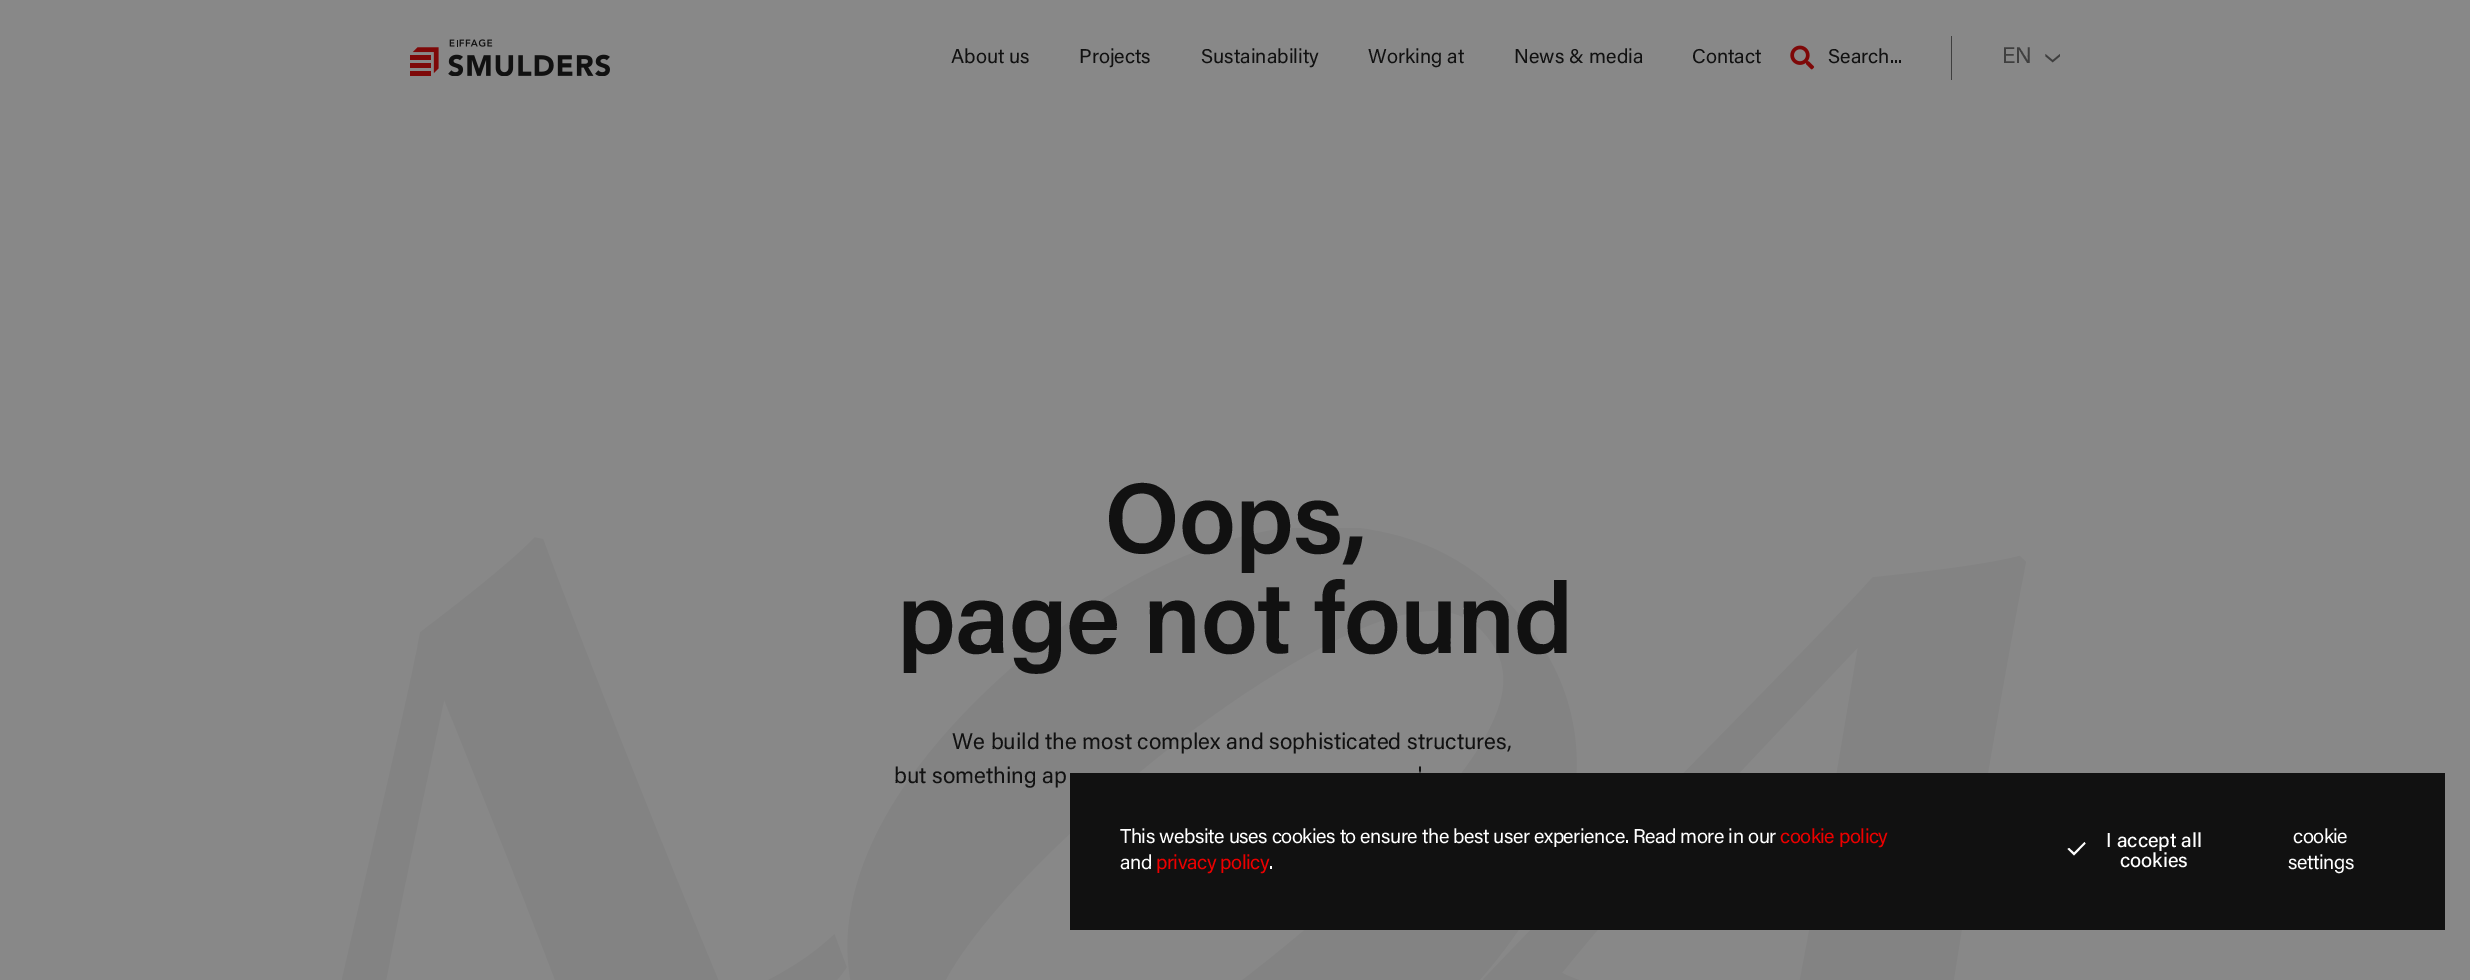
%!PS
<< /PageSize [2470 980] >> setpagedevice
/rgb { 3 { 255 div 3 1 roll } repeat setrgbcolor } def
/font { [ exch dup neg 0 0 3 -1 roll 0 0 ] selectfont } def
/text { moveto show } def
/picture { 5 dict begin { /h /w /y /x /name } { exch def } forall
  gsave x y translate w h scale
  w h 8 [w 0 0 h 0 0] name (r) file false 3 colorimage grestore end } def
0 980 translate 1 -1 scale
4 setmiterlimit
136 136 136 rgb
0 0 2470 980 rectfill
(img_01.rgb) 410 39 200 37 picture
(img_02.rgb) 1790 45 25 25 picture
63 63 63 rgb
1951 36 1 44 rectfill
(img_03.rgb) 2045 54 15 9 picture
(img_04.rgb) 342 528 1684 452 picture
17 17 17 rgb
1070 773 1375 157 rectfill
255 255 255 rgb
2084.5 842 moveto 1 1.5 rlineto -11.5 12 rlineto -6.5 -6.5 rlineto 1.5 -1 rlineto 5 4.5 rlineto closepath eofill
/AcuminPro-Regular 20 font
17 17 17 rgb
(About us) 951 63 text
(Projects) 1079 63 text
(Sustainability) 1201 63 text
(Working at) 1368 63 text
(News & media) 1514 63 text
(Contact) 1692 63 text
(Search...) 1828 63 text
/AcuminPro-Regular 22.5 font
63 63 63 rgb
(EN) 2002 63 text
/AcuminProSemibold-SemiBold 100 font
17 17 17 rgb
1104 553 moveto -1 0 (Oops,) ashow
897 653 moveto -1 0 (page not found) ashow
/AcuminPro-Regular 22.5 font
(We build the most complex and sophisticated structures,) 952 749 text
(but something ap) 894 783 text
(') 1418 783 text
/AcuminPro-Regular 20 font
255 255 255 rgb
1120 843 moveto -0.5 0 (This website uses cookies to ensure the best user experience. Read more in our) ashow
235 0 0 rgb
1780 843 moveto -0.5 0 (cookie policy) ashow
255 255 255 rgb
1120 869 moveto -0.5 0 (and) ashow
235 0 0 rgb
1156 869 moveto -0.5 0 (privacy policy) ashow
255 255 255 rgb
1269 869 moveto -0.5 0 (.) ashow
/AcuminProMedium-Medium 20 font
(I accept all) 2106 847 text
(cookies) 2120 867 text
/AcuminPro-Regular 20 font
2293 843 moveto -0.5 0 (cookie) ashow
2288 869 moveto -0.5 0 (settings) ashow
showpage
